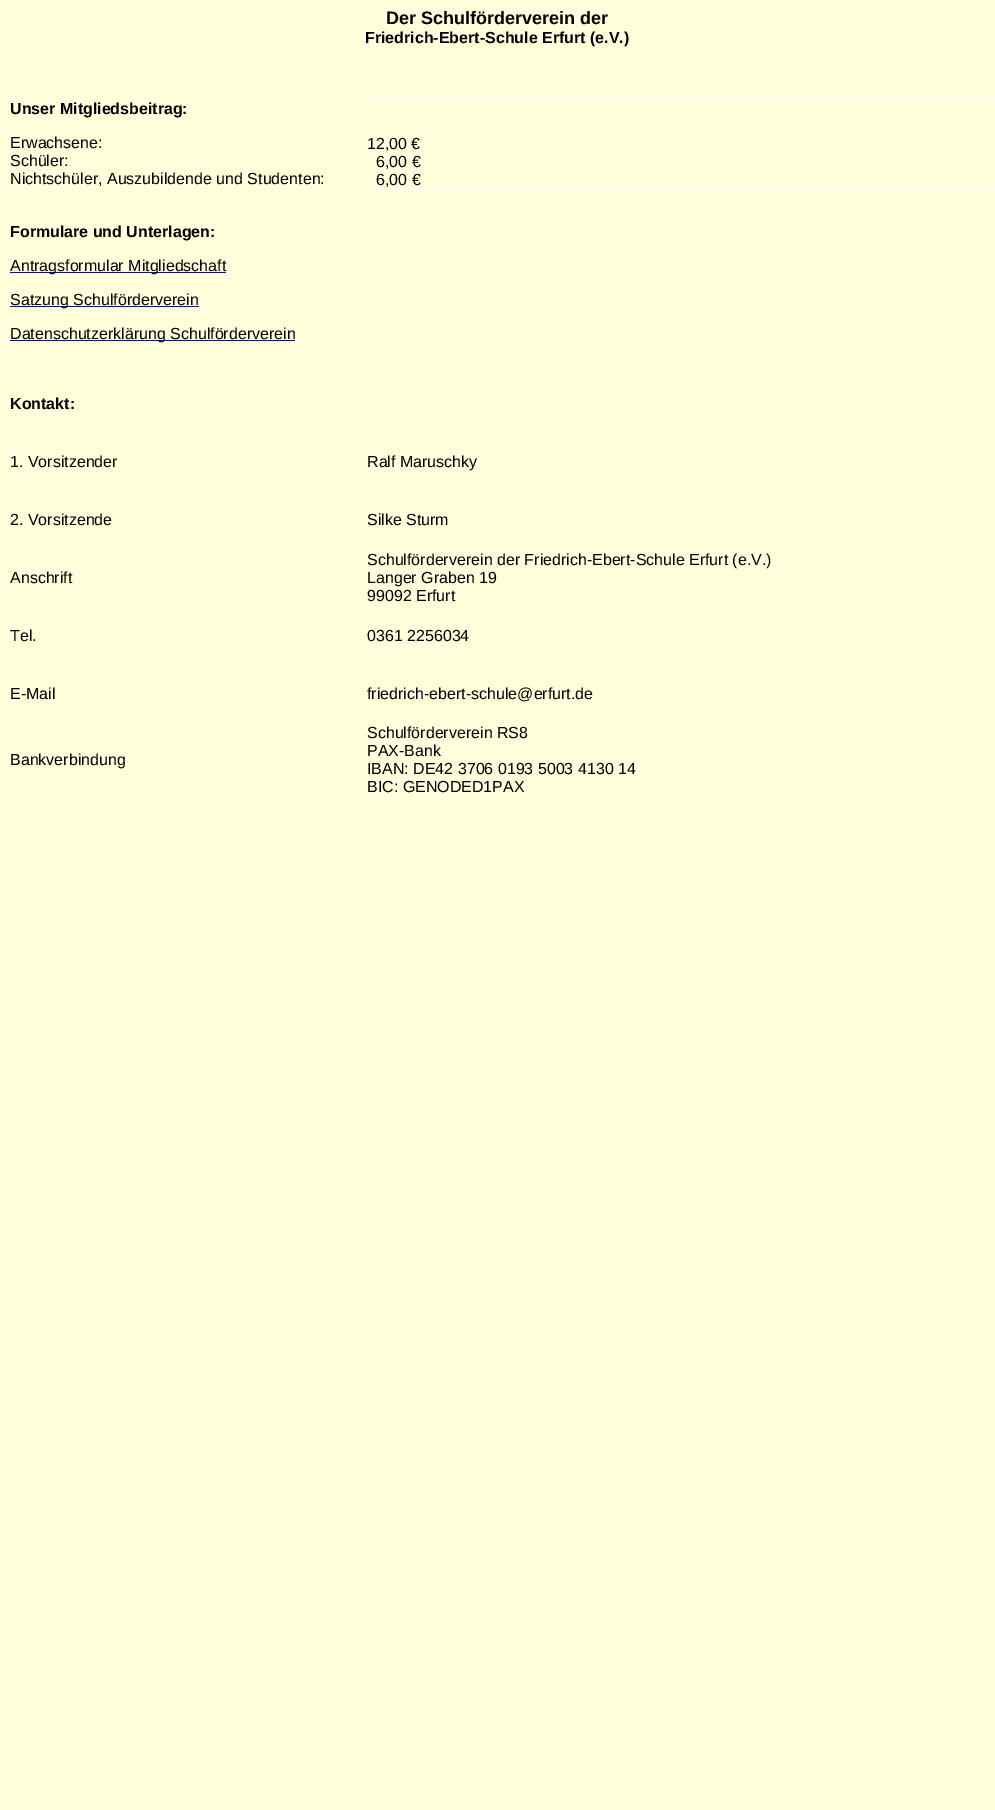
%!PS
<< /PageSize [995 1810] >> setpagedevice
/rgb { 3 { 255 div 3 1 roll } repeat setrgbcolor } def
/font { [ exch dup neg 0 0 3 -1 roll 0 0 ] selectfont } def
/text { moveto show } def
0 1810 translate 1 -1 scale
4 setmiterlimit
255 255 220 rgb
0 0 995 1810 rectfill
255 255 255 rgb
365 97 630 1 rectfill
255 255 220 rgb
365 97 1 1 rectfill
255 255 255 rgb
365 190 630 1 rectfill
255 255 220 rgb
365 190 1 1 rectfill
0 0 238 rgb
10 272 216 1 rectfill
10 306 189 1 rectfill
10 340 285 1 rectfill
/LiberationSans-Bold 18 font
0 0 0 rgb
(Der Schulförderverein der) 386 24 text
/LiberationSans-Bold 16 font
(Friedrich-Ebert-Schule Erfurt \(e.V.\)) 365 43 text
(Unser Mitgliedsbeitrag:) 10 114 text
/LiberationSans-Regular 16 font
(Erwachsene:) 10 148 text
(Schüler:) 10 166 text
(Nichtschüler, Auszubildende und Studenten:) 10 184 text
(12,00 €) 367 149 text
(6,00 €) 376 167 text
(6,00 €) 376 185 text
/LiberationSans-Bold 16 font
(Formulare und Unterlagen:) 10 237 text
/LiberationSans-Regular 16 font
(Antragsformular Mitgliedschaft) 10 271 text
(Satzung Schulförderverein) 10 305 text
(Datenschutzerklärung Schulförderverein) 10 339 text
/LiberationSans-Bold 16 font
(Kontakt:) 10 409 text
/LiberationSans-Regular 16 font
(1. Vorsitzender) 10 467 text
(Ralf Maruschky) 367 467 text
(2. Vorsitzende) 10 525 text
(Silke Sturm) 367 525 text
(Anschrift) 10 583 text
(Schulförderverein der Friedrich-Ebert-Schule Erfurt \(e.V.\)) 367 565 text
(Langer Graben 19) 367 583 text
(99092 Erfurt) 367 601 text
(Tel.) 10 641 text
(0361 2256034) 367 641 text
(E-Mail) 10 699 text
(friedrich-ebert-schule@erfurt.de) 367 699 text
(Bankverbindung) 10 765 text
(Schulförderverein RS8) 367 738 text
(PAX-Bank) 367 756 text
(IBAN: DE42 3706 0193 5003 4130 14) 367 774 text
(BIC: GENODED1PAX) 367 792 text
showpage
